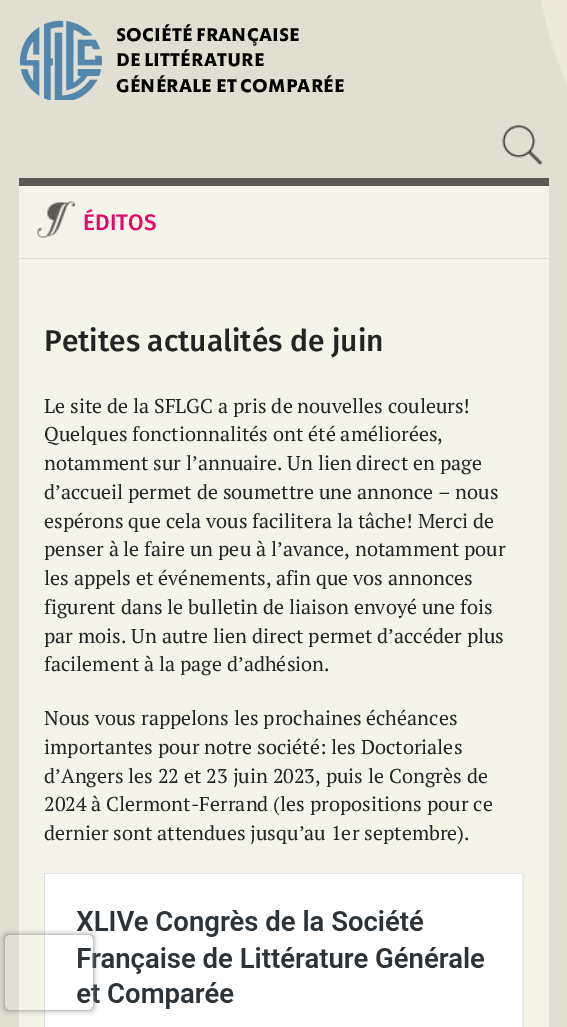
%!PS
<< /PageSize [567 1027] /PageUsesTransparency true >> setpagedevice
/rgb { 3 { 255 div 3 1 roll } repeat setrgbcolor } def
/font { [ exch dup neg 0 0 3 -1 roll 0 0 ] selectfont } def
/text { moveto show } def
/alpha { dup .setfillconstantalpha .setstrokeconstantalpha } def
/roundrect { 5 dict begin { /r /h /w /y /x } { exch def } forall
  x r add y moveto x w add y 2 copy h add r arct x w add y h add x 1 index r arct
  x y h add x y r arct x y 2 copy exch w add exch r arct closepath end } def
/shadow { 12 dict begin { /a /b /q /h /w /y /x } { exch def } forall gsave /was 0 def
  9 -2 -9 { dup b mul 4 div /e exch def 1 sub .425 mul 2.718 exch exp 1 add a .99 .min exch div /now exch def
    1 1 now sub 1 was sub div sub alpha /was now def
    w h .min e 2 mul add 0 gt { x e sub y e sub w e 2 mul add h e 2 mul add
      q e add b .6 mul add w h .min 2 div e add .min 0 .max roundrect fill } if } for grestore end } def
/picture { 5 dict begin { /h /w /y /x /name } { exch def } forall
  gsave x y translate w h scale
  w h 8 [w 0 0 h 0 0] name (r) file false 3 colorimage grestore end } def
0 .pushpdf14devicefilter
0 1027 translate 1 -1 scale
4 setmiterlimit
225 223 209 rgb
0 0 567 1027 rectfill
(img_01.rgb) 541 0 26 85 picture
(img_02.rgb) 20 20 82 80 picture
(img_03.rgb) 502 125 41 40 picture
244 244 233 rgb
19 186 530 841 rectfill
93 90 86 rgb
19 178 530 8 rectfill
223 218 212 rgb
19 258 530 1 rectfill
(img_04.rgb) 37 201 38 37 picture
(img_05.rgb) 44 873 480 154 picture
gsave
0 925 moveto 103 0 rlineto 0 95 rlineto -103 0 rlineto closepath 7.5 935 moveto 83 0 rlineto 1.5 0 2.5 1 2.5 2.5 rcurveto 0 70 rlineto 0 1.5 -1 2.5 -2.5 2.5 rcurveto -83 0 rlineto -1.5 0 -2.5 -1 -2.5 -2.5 rcurveto 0 -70 rlineto 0 -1.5 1 -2.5 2.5 -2.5 rcurveto closepath eoclip newpath
128 128 128 rgb
5 935 88 75 2.5 3 1 shadow
grestore
/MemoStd-Medium 18 font
0 0 0 rgb
116 41 moveto 0.2 0 (SOCIÉTÉ FRANÇAISE) ashow
116 66 moveto 0.2 0 (DE LITTÉRATURE) ashow
116 92 moveto 0.2 0 (GÉNÉRALE ET COMPARÉE) ashow
/FiraSans-Medium 22.5 font
227 7 106 rgb
(ÉDITOS) 83 230 text
/FiraSans-Medium 30 font
36 36 36 rgb
(Petites actualités de juin) 44 351 text
/PTSerif-Regular 20 font
(Le site de la SFLGC a pris de nouvelles couleurs!) 44 413 text
(Quelques fonctionnalités ont été améliorées,) 44 441 text
(notamment sur l’annuaire. Un lien direct en page) 44 470 text
(d’accueil permet de soumettre une annonce – nous) 44 499 text
(espérons que cela vous facilitera la tâche! Merci de) 44 528 text
(penser à le faire un peu à l’avance, notamment pour) 44 556 text
(les appels et événements, afin que vos annonces) 44 585 text
(figurent dans le bulletin de liaison envoyé une fois) 44 614 text
(par mois. Un autre lien direct permet d’accéder plus) 44 643 text
(facilement à la page d’adhésion.) 44 671 text
(Nous vous rappelons les prochaines échéances) 44 725 text
(importantes pour notre société: les Doctoriales) 44 754 text
(d’Angers les 22 et 23 juin 2023, puis le Congrès de) 44 783 text
(2024 à Clermont-Ferrand \(les propositions pour ce) 44 811 text
(dernier sont attendues jusqu’au 1er septembre\).) 44 840 text
.poppdf14devicefilter showpage
